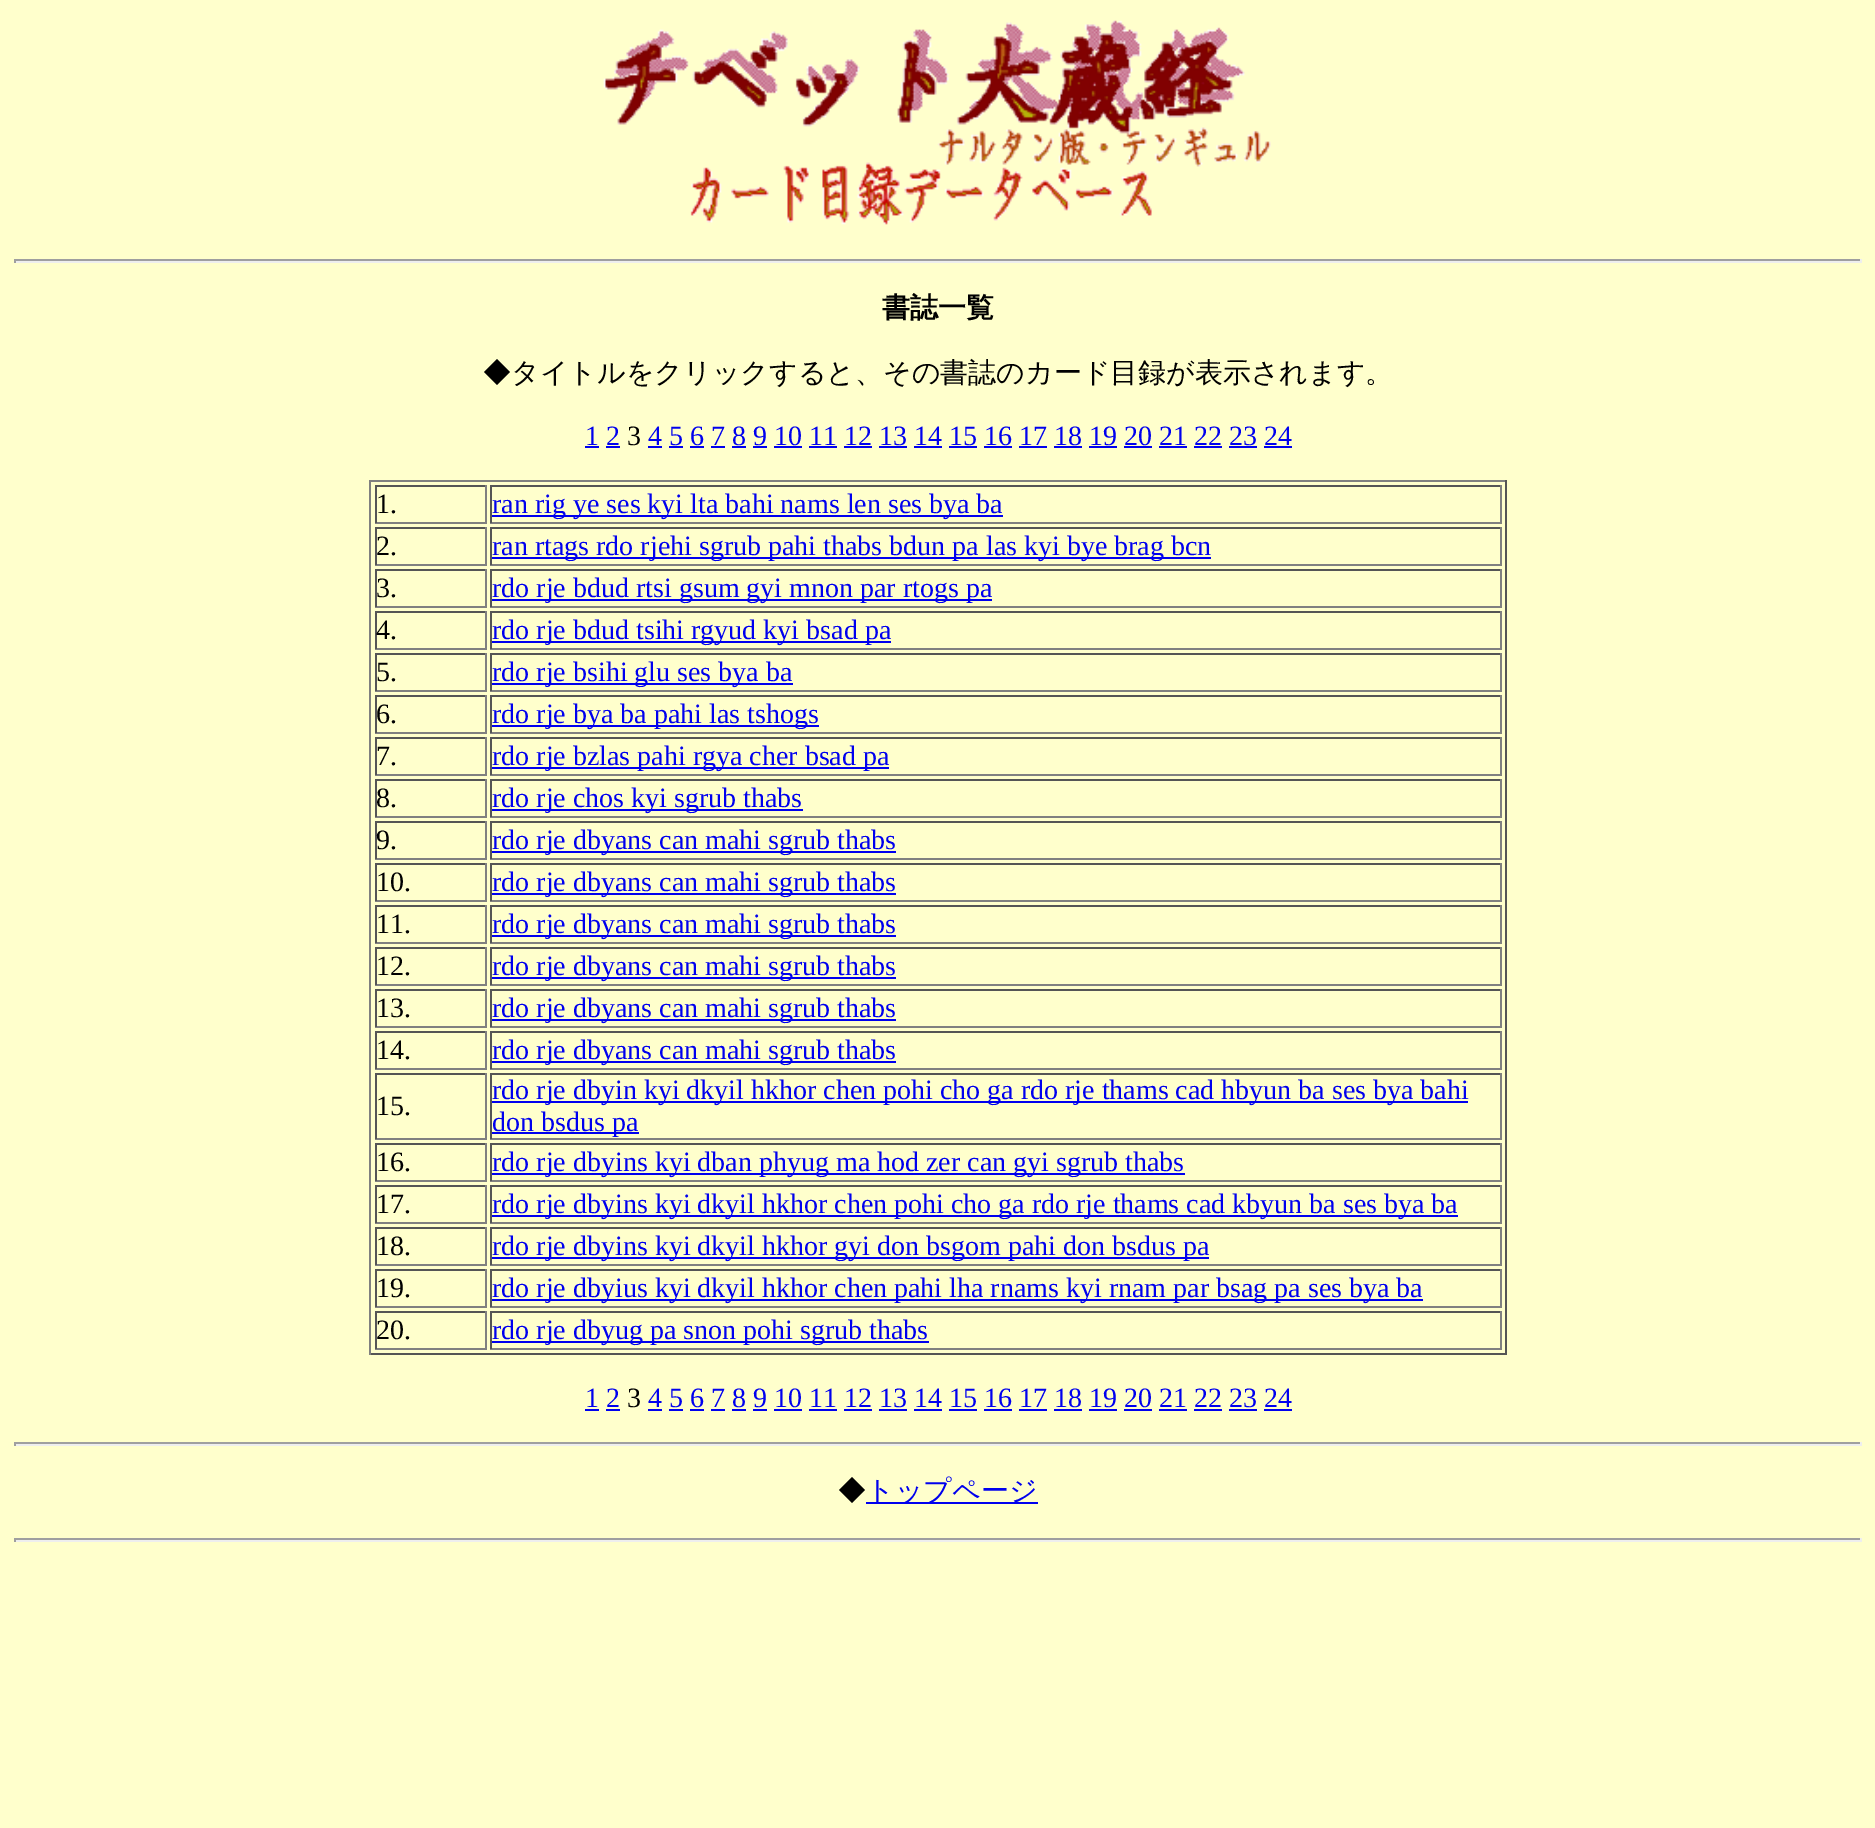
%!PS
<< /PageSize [1875 1828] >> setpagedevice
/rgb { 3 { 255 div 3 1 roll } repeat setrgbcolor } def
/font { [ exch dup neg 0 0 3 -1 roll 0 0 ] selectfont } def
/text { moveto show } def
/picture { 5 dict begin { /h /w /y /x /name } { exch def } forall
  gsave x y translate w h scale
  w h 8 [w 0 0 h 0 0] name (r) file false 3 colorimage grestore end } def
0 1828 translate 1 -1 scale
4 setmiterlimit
255 255 204 rgb
0 0 1875 1828 rectfill
(img_01.rgb) 603 20 668 205 picture
159 159 159 rgb
14 259 1848 2 rectfill
238 238 238 rgb
1860 259 2 4 rectfill
14 261 1848 2 rectfill
159 159 159 rgb
14 259 2 4 rectfill
0 0 238 rgb
585 446 14 2 rectfill
648 446 14 2 rectfill
606 446 14 2 rectfill
669 446 14 2 rectfill
690 446 14 2 rectfill
711 446 14 2 rectfill
732 446 14 2 rectfill
753 446 14 2 rectfill
774 446 28 2 rectfill
809 446 28 2 rectfill
844 446 28 2 rectfill
879 446 28 2 rectfill
914 446 28 2 rectfill
949 446 28 2 rectfill
984 446 28 2 rectfill
1019 446 28 2 rectfill
1054 446 28 2 rectfill
1089 446 28 2 rectfill
1124 446 28 2 rectfill
1159 446 28 2 rectfill
1194 446 28 2 rectfill
1229 446 28 2 rectfill
1264 446 28 2 rectfill
128 128 128 rgb
369 480 1138 2 rectfill
85 85 85 rgb
1505 480 2 875 rectfill
369 1353 1138 2 rectfill
128 128 128 rgb
369 480 2 875 rectfill
85 85 85 rgb
375 485 112 2 rectfill
128 128 128 rgb
485 485 2 38 rectfill
375 522 112 2 rectfill
85 85 85 rgb
375 485 2 38 rectfill
490 485 1012 2 rectfill
128 128 128 rgb
1500 485 2 38 rectfill
490 522 1012 2 rectfill
85 85 85 rgb
490 485 2 38 rectfill
0 0 238 rgb
492 515 511 2 rectfill
85 85 85 rgb
375 527 112 2 rectfill
128 128 128 rgb
485 527 2 38 rectfill
375 564 112 2 rectfill
85 85 85 rgb
375 527 2 38 rectfill
490 527 1012 2 rectfill
128 128 128 rgb
1500 527 2 38 rectfill
490 564 1012 2 rectfill
85 85 85 rgb
490 527 2 38 rectfill
0 0 238 rgb
492 557 719 2 rectfill
85 85 85 rgb
375 569 112 2 rectfill
128 128 128 rgb
485 569 2 38 rectfill
375 606 112 2 rectfill
85 85 85 rgb
375 569 2 38 rectfill
490 569 1012 2 rectfill
128 128 128 rgb
1500 569 2 38 rectfill
490 606 1012 2 rectfill
85 85 85 rgb
490 569 2 38 rectfill
0 0 238 rgb
492 599 500 2 rectfill
85 85 85 rgb
375 611 112 2 rectfill
128 128 128 rgb
485 611 2 38 rectfill
375 648 112 2 rectfill
85 85 85 rgb
375 611 2 38 rectfill
490 611 1012 2 rectfill
128 128 128 rgb
1500 611 2 38 rectfill
490 648 1012 2 rectfill
85 85 85 rgb
490 611 2 38 rectfill
0 0 238 rgb
492 641 399 2 rectfill
85 85 85 rgb
375 653 112 2 rectfill
128 128 128 rgb
485 653 2 38 rectfill
375 690 112 2 rectfill
85 85 85 rgb
375 653 2 38 rectfill
490 653 1012 2 rectfill
128 128 128 rgb
1500 653 2 38 rectfill
490 690 1012 2 rectfill
85 85 85 rgb
490 653 2 38 rectfill
0 0 238 rgb
492 683 301 2 rectfill
85 85 85 rgb
375 695 112 2 rectfill
128 128 128 rgb
485 695 2 38 rectfill
375 732 112 2 rectfill
85 85 85 rgb
375 695 2 38 rectfill
490 695 1012 2 rectfill
128 128 128 rgb
1500 695 2 38 rectfill
490 732 1012 2 rectfill
85 85 85 rgb
490 695 2 38 rectfill
0 0 238 rgb
492 725 327 2 rectfill
85 85 85 rgb
375 737 112 2 rectfill
128 128 128 rgb
485 737 2 38 rectfill
375 774 112 2 rectfill
85 85 85 rgb
375 737 2 38 rectfill
490 737 1012 2 rectfill
128 128 128 rgb
1500 737 2 38 rectfill
490 774 1012 2 rectfill
85 85 85 rgb
490 737 2 38 rectfill
0 0 238 rgb
492 767 397 2 rectfill
85 85 85 rgb
375 779 112 2 rectfill
128 128 128 rgb
485 779 2 38 rectfill
375 816 112 2 rectfill
85 85 85 rgb
375 779 2 38 rectfill
490 779 1012 2 rectfill
128 128 128 rgb
1500 779 2 38 rectfill
490 816 1012 2 rectfill
85 85 85 rgb
490 779 2 38 rectfill
0 0 238 rgb
492 809 311 2 rectfill
85 85 85 rgb
375 821 112 2 rectfill
128 128 128 rgb
485 821 2 38 rectfill
375 858 112 2 rectfill
85 85 85 rgb
375 821 2 38 rectfill
490 821 1012 2 rectfill
128 128 128 rgb
1500 821 2 38 rectfill
490 858 1012 2 rectfill
85 85 85 rgb
490 821 2 38 rectfill
0 0 238 rgb
492 851 404 2 rectfill
85 85 85 rgb
375 863 112 2 rectfill
128 128 128 rgb
485 863 2 38 rectfill
375 900 112 2 rectfill
85 85 85 rgb
375 863 2 38 rectfill
490 863 1012 2 rectfill
128 128 128 rgb
1500 863 2 38 rectfill
490 900 1012 2 rectfill
85 85 85 rgb
490 863 2 38 rectfill
0 0 238 rgb
492 893 404 2 rectfill
85 85 85 rgb
375 905 112 2 rectfill
128 128 128 rgb
485 905 2 38 rectfill
375 942 112 2 rectfill
85 85 85 rgb
375 905 2 38 rectfill
490 905 1012 2 rectfill
128 128 128 rgb
1500 905 2 38 rectfill
490 942 1012 2 rectfill
85 85 85 rgb
490 905 2 38 rectfill
0 0 238 rgb
492 935 404 2 rectfill
85 85 85 rgb
375 947 112 2 rectfill
128 128 128 rgb
485 947 2 38 rectfill
375 984 112 2 rectfill
85 85 85 rgb
375 947 2 38 rectfill
490 947 1012 2 rectfill
128 128 128 rgb
1500 947 2 38 rectfill
490 984 1012 2 rectfill
85 85 85 rgb
490 947 2 38 rectfill
0 0 238 rgb
492 977 404 2 rectfill
85 85 85 rgb
375 989 112 2 rectfill
128 128 128 rgb
485 989 2 38 rectfill
375 1026 112 2 rectfill
85 85 85 rgb
375 989 2 38 rectfill
490 989 1012 2 rectfill
128 128 128 rgb
1500 989 2 38 rectfill
490 1026 1012 2 rectfill
85 85 85 rgb
490 989 2 38 rectfill
0 0 238 rgb
492 1019 404 2 rectfill
85 85 85 rgb
375 1031 112 2 rectfill
128 128 128 rgb
485 1031 2 38 rectfill
375 1068 112 2 rectfill
85 85 85 rgb
375 1031 2 38 rectfill
490 1031 1012 2 rectfill
128 128 128 rgb
1500 1031 2 38 rectfill
490 1068 1012 2 rectfill
85 85 85 rgb
490 1031 2 38 rectfill
0 0 238 rgb
492 1061 404 2 rectfill
85 85 85 rgb
375 1073 112 2 rectfill
128 128 128 rgb
485 1073 2 66 rectfill
375 1138 112 2 rectfill
85 85 85 rgb
375 1073 2 66 rectfill
490 1073 1012 2 rectfill
128 128 128 rgb
1500 1073 2 66 rectfill
490 1138 1012 2 rectfill
85 85 85 rgb
490 1073 2 66 rectfill
0 0 238 rgb
492 1101 976 2 rectfill
492 1132 147 2 rectfill
85 85 85 rgb
375 1143 112 2 rectfill
128 128 128 rgb
485 1143 2 38 rectfill
375 1180 112 2 rectfill
85 85 85 rgb
375 1143 2 38 rectfill
490 1143 1012 2 rectfill
128 128 128 rgb
1500 1143 2 38 rectfill
490 1180 1012 2 rectfill
85 85 85 rgb
490 1143 2 38 rectfill
0 0 238 rgb
492 1173 693 2 rectfill
85 85 85 rgb
375 1185 112 2 rectfill
128 128 128 rgb
485 1185 2 38 rectfill
375 1222 112 2 rectfill
85 85 85 rgb
375 1185 2 38 rectfill
490 1185 1012 2 rectfill
128 128 128 rgb
1500 1185 2 38 rectfill
490 1222 1012 2 rectfill
85 85 85 rgb
490 1185 2 38 rectfill
0 0 238 rgb
492 1215 966 2 rectfill
85 85 85 rgb
375 1227 112 2 rectfill
128 128 128 rgb
485 1227 2 38 rectfill
375 1264 112 2 rectfill
85 85 85 rgb
375 1227 2 38 rectfill
490 1227 1012 2 rectfill
128 128 128 rgb
1500 1227 2 38 rectfill
490 1264 1012 2 rectfill
85 85 85 rgb
490 1227 2 38 rectfill
0 0 238 rgb
492 1257 717 2 rectfill
85 85 85 rgb
375 1269 112 2 rectfill
128 128 128 rgb
485 1269 2 38 rectfill
375 1306 112 2 rectfill
85 85 85 rgb
375 1269 2 38 rectfill
490 1269 1012 2 rectfill
128 128 128 rgb
1500 1269 2 38 rectfill
490 1306 1012 2 rectfill
85 85 85 rgb
490 1269 2 38 rectfill
0 0 238 rgb
492 1299 931 2 rectfill
85 85 85 rgb
375 1311 112 2 rectfill
128 128 128 rgb
485 1311 2 38 rectfill
375 1348 112 2 rectfill
85 85 85 rgb
375 1311 2 38 rectfill
490 1311 1012 2 rectfill
128 128 128 rgb
1500 1311 2 38 rectfill
490 1348 1012 2 rectfill
85 85 85 rgb
490 1311 2 38 rectfill
0 0 238 rgb
492 1341 437 2 rectfill
585 1409 14 2 rectfill
648 1409 14 2 rectfill
606 1409 14 2 rectfill
669 1409 14 2 rectfill
690 1409 14 2 rectfill
711 1409 14 2 rectfill
732 1409 14 2 rectfill
753 1409 14 2 rectfill
774 1409 28 2 rectfill
809 1409 28 2 rectfill
844 1409 28 2 rectfill
879 1409 28 2 rectfill
914 1409 28 2 rectfill
949 1409 28 2 rectfill
984 1409 28 2 rectfill
1019 1409 28 2 rectfill
1054 1409 28 2 rectfill
1089 1409 28 2 rectfill
1124 1409 28 2 rectfill
1159 1409 28 2 rectfill
1194 1409 28 2 rectfill
1229 1409 28 2 rectfill
1264 1409 28 2 rectfill
159 159 159 rgb
14 1442 1848 2 rectfill
238 238 238 rgb
1860 1442 2 4 rectfill
14 1444 1848 2 rectfill
159 159 159 rgb
14 1442 2 4 rectfill
0 0 238 rgb
866 1502 172 2 rectfill
159 159 159 rgb
14 1538 1848 2 rectfill
238 238 238 rgb
1860 1538 2 4 rectfill
14 1540 1848 2 rectfill
159 159 159 rgb
14 1538 2 4 rectfill
/WenQuanYiZenHei-Bold 28 font
0 0 0 rgb
(書誌一覧) 882 317 text
/WenQuanYiZenHei-Medium 28 font
(◆タイトルをクリックすると、その書誌のカード目録が表示されます。) 483 382 text
/LiberationSerif-Regular 28 font
0 0 238 rgb
(1 2) 585 445 text
0 0 0 rgb
(3) 627 445 text
0 0 238 rgb
(4 5 6 7 8 9 10 11 12 13 14 15 16 17 18 19 20 21 22 23 24) 648 445 text
0 0 0 rgb
(1.) 376 513 text
0 0 238 rgb
(ran rig ye ses kyi lta bahi nams len ses bya ba) 492 513 text
0 0 0 rgb
(2.) 376 555 text
0 0 238 rgb
(ran rtags rdo rjehi sgrub pahi thabs bdun pa las kyi bye brag bcn) 492 555 text
0 0 0 rgb
(3.) 376 597 text
0 0 238 rgb
(rdo rje bdud rtsi gsum gyi mnon par rtogs pa) 492 597 text
0 0 0 rgb
(4.) 376 639 text
0 0 238 rgb
(rdo rje bdud tsihi rgyud kyi bsad pa) 492 639 text
0 0 0 rgb
(5.) 376 681 text
0 0 238 rgb
(rdo rje bsihi glu ses bya ba) 492 681 text
0 0 0 rgb
(6.) 376 723 text
0 0 238 rgb
(rdo rje bya ba pahi las tshogs) 492 723 text
0 0 0 rgb
(7.) 376 765 text
0 0 238 rgb
(rdo rje bzlas pahi rgya cher bsad pa) 492 765 text
0 0 0 rgb
(8.) 376 807 text
0 0 238 rgb
(rdo rje chos kyi sgrub thabs) 492 807 text
0 0 0 rgb
(9.) 376 849 text
0 0 238 rgb
(rdo rje dbyans can mahi sgrub thabs) 492 849 text
0 0 0 rgb
(10.) 376 891 text
0 0 238 rgb
(rdo rje dbyans can mahi sgrub thabs) 492 891 text
0 0 0 rgb
(11.) 376 933 text
0 0 238 rgb
(rdo rje dbyans can mahi sgrub thabs) 492 933 text
0 0 0 rgb
(12.) 376 975 text
0 0 238 rgb
(rdo rje dbyans can mahi sgrub thabs) 492 975 text
0 0 0 rgb
(13.) 376 1017 text
0 0 238 rgb
(rdo rje dbyans can mahi sgrub thabs) 492 1017 text
0 0 0 rgb
(14.) 376 1059 text
0 0 238 rgb
(rdo rje dbyans can mahi sgrub thabs) 492 1059 text
0 0 0 rgb
(15.) 376 1115 text
0 0 238 rgb
(rdo rje dbyin kyi dkyil hkhor chen pohi cho ga rdo rje thams cad hbyun ba ses bya bahi) 492 1099 text
(don bsdus pa) 492 1131 text
0 0 0 rgb
(16.) 376 1171 text
0 0 238 rgb
(rdo rje dbyins kyi dban phyug ma hod zer can gyi sgrub thabs) 492 1171 text
0 0 0 rgb
(17.) 376 1213 text
0 0 238 rgb
(rdo rje dbyins kyi dkyil hkhor chen pohi cho ga rdo rje thams cad kbyun ba ses bya ba) 492 1213 text
0 0 0 rgb
(18.) 376 1255 text
0 0 238 rgb
(rdo rje dbyins kyi dkyil hkhor gyi don bsgom pahi don bsdus pa) 492 1255 text
0 0 0 rgb
(19.) 376 1297 text
0 0 238 rgb
(rdo rje dbyius kyi dkyil hkhor chen pahi lha rnams kyi rnam par bsag pa ses bya ba) 492 1297 text
0 0 0 rgb
(20.) 376 1339 text
0 0 238 rgb
(rdo rje dbyug pa snon pohi sgrub thabs) 492 1339 text
(1 2) 585 1407 text
0 0 0 rgb
(3) 627 1407 text
0 0 238 rgb
(4 5 6 7 8 9 10 11 12 13 14 15 16 17 18 19 20 21 22 23 24) 648 1407 text
/WenQuanYiZenHei-Medium 28 font
0 0 0 rgb
(◆) 838 1500 text
0 0 238 rgb
(トップページ) 866 1500 text
showpage
